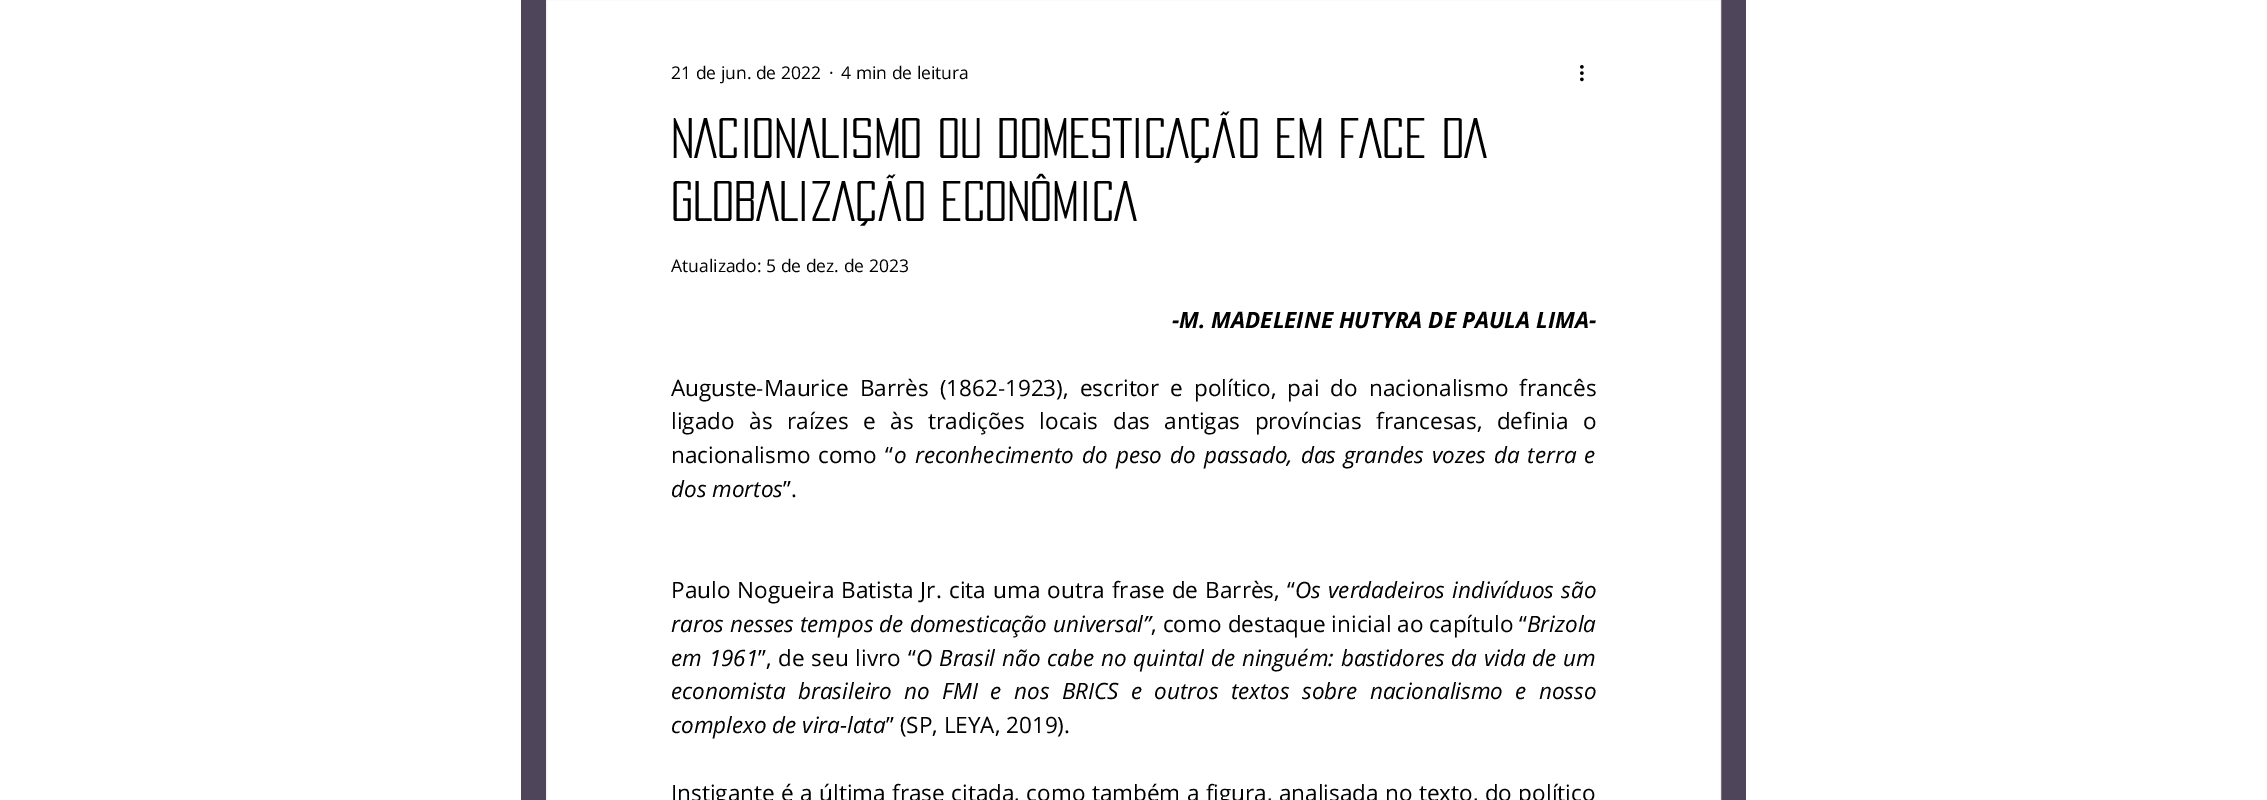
%!PS
<< /PageSize [2267 800] >> setpagedevice
/rgb { 3 { 255 div 3 1 roll } repeat setrgbcolor } def
/font { [ exch dup neg 0 0 3 -1 roll 0 0 ] selectfont } def
/text { moveto show } def
/picture { 5 dict begin { /h /w /y /x /name } { exch def } forall
  gsave x y translate w h scale
  w h 8 [w 0 0 h 0 0] name (r) file false 3 colorimage grestore end } def
0 800 translate 1 -1 scale
4 setmiterlimit
255 255 255 rgb
0 0 2267 800 rectfill
79 69 90 rgb
521 0 1225 800 rectfill
255 255 255 rgb
546.5 -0.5 moveto 1174 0 rlineto 0 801 rlineto -1174 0 rlineto closepath gsave fill grestore
241 240 240 rgb
stroke
(img_01.rgb) 1580 65 4 17 picture
/OpenSans-Regular 17.5 font
0 0 0 rgb
(21 de jun. de 2022) 671 79 text
(·) 829 79 text
(4 min de leitura) 841 79 text
/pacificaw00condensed-Regular 50 font
(NACIONALISMO OU DOMESTICAÇÃO EM FACE DA) 671 158 text
(GLOBALIZAÇÃO ECONÔMICA) 671 221 text
/OpenSans-Regular 17.5 font
(Atualizado: 5 de dez. de 2023) 671 272 text
/OpenSans-BoldItalic 22.5 font
(-M. MADELEINE HUTYRA DE PAULA LIMA-) 1172 328 text
/OpenSans-Regular 22.5 font
671 396 moveto 5.25 0 32 (Auguste-Maurice Barrès \(1862-1923\), escritor e político, pai do nacionalismo francês) widthshow
671 429 moveto 8.75 0 32 (ligado às raízes e às tradições locais das antigas províncias francesas, definia o) widthshow
671 463 moveto 2 0 32 (nacionalismo como “) widthshow
/OpenSans-Italic 22.5 font
894 463 moveto 2.25 0 32 (o reconhecimento do peso do passado, das grandes vozes da terra e) widthshow
(dos mortos) 671 497 text
/OpenSans-Regular 22.5 font
(”.) 783 497 text
671 598 moveto 1.4 0 32 (Paulo Nogueira Batista Jr. cita uma outra frase de Barrès, “) widthshow
/OpenSans-Italic 22.5 font
1295 598 moveto 1.4 0 32 (Os verdadeiros indivíduos são) widthshow
671 632 moveto 0.25 0 32 (raros nesses tempos de domesticação universal”) widthshow
/OpenSans-Regular 22.5 font
1151 632 moveto 0.25 0 32 (, como destaque inicial ao capítulo “) widthshow
/OpenSans-Italic 22.5 font
(Brizola) 1527 632 text
671 666 moveto 1 0 32 (em 1961) widthshow
/OpenSans-Regular 22.5 font
758 666 moveto 1 0 32 (”, de seu livro “) widthshow
/OpenSans-Italic 22.5 font
916 666 moveto 1 0 32 (O Brasil não cabe no quintal de ninguém: bastidores da vida de um) widthshow
671 699 moveto 6.6 0 32 (economista brasileiro no FMI e nos BRICS e outros textos sobre nacionalismo e nosso) widthshow
(complexo de vira-lata) 671 733 text
/OpenSans-Regular 22.5 font
(” \(SP, LEYA, 2019\).) 886 733 text
671 801 moveto 0.6 0 32 (Instigante é a última frase citada, como também a figura, analisada no texto, do político) widthshow
showpage
